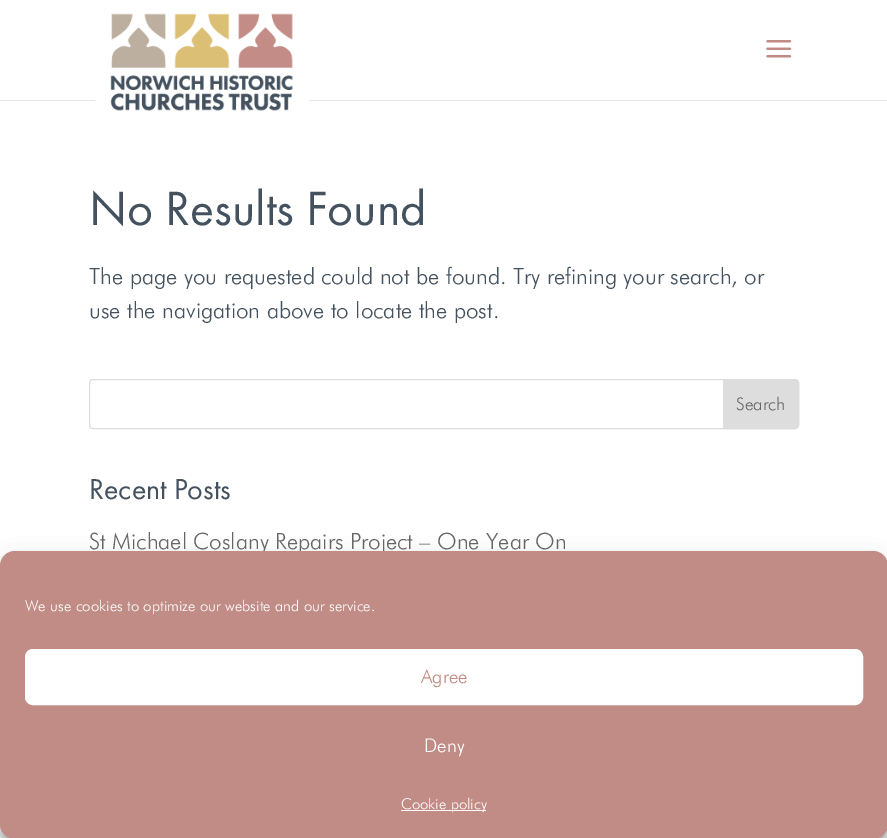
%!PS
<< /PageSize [887 838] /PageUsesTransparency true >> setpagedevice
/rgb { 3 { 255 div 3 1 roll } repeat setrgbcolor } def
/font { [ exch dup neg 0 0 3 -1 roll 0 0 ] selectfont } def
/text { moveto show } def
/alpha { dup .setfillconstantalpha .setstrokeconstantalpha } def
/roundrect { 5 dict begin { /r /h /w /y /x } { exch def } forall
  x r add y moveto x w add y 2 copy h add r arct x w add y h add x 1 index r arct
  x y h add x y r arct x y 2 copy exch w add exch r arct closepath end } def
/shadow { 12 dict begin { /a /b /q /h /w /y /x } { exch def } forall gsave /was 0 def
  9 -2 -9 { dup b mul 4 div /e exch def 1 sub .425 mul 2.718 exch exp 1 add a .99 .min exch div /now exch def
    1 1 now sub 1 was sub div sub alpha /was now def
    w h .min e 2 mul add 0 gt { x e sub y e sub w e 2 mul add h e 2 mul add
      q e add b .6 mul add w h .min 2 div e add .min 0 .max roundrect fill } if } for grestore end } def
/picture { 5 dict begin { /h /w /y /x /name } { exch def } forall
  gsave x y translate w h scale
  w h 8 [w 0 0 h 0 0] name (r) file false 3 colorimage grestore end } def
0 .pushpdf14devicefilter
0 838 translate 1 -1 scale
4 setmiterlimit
255 255 255 rgb
0 0 887 838 rectfill
230 230 230 rgb
0 100 moveto 0 1 rlineto 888 0 rlineto 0 -100 rlineto 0 99 rlineto closepath fill
(img_01.rgb) 95 13 214 98 picture
(img_02.rgb) 766 40 26 18 picture
221 221 221 rgb
89.5 379.5 709 49 3.5 roundrect stroke
723.5 379.5 moveto 71.5 0 rlineto 2 0 3.5 1.5 3.5 3.5 rcurveto 0 42 rlineto 0 2 -1.5 3.5 -3.5 3.5 rcurveto -71.5 0 rlineto closepath gsave fill grestore
stroke
0 0 0 rgb
0 559 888 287 15 4 0.23 shadow
0 564 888 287 15 12.5 0.19 shadow
/FuturaPT-Regular 50 font
68 82 95 rgb
(No Results Found) 89 225 text
/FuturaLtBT-Light 22.5 font
(The page you requested could not be found. Try refining your search, or) 89 284 text
(use the navigation above to locate the post.) 89 318 text
/FuturaLtBT-Light 17.5 font
102 102 102 rgb
(Search) 736 410 text
/FuturaPT-Regular 30 font
68 82 95 rgb
(Recent Posts) 89 499 text
/FuturaLtBT-Light 22.5 font
102 102 102 rgb
(St Michael Coslany Repairs Project – One Year On) 89 549 text
193 140 134 rgb
0 551 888 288 15 roundrect fill
/FuturaLtBT-Light 15 font
255 255 255 rgb
(We use cookies to optimize our website and our service.) 25 611 text
25.5 649.5 837 55 7.5 roundrect gsave fill grestore
stroke
/FuturaLtBT-Light 19 font
193 140 134 rgb
(Agree) 421 683 text
255 255 255 rgb
(Deny) 424 752 text
401 810 85 1 rectfill
/FuturaLtBT-Light 15 font
(Cookie policy) 401 809 text
.poppdf14devicefilter showpage
